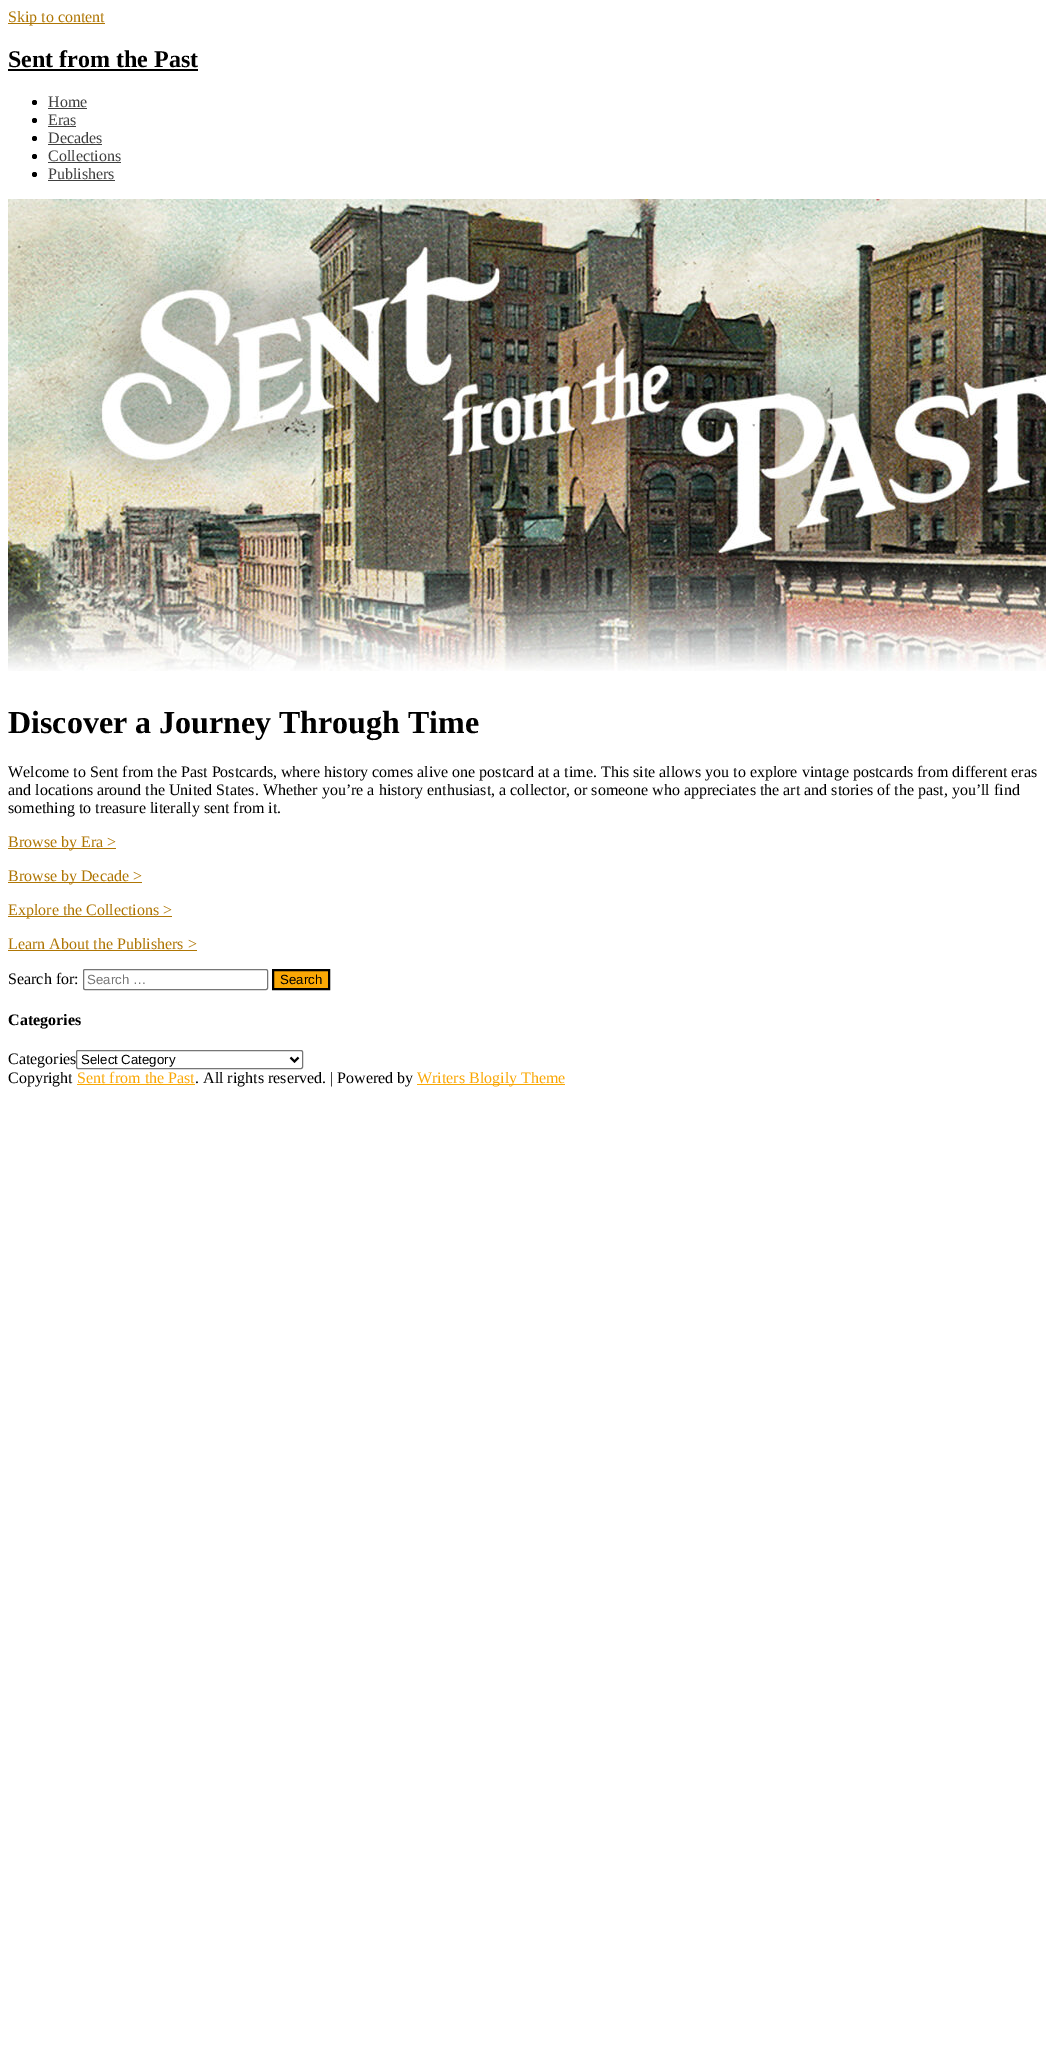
%!PS
<< /PageSize [1046 2051] >> setpagedevice
/rgb { 3 { 255 div 3 1 roll } repeat setrgbcolor } def
/font { [ exch dup neg 0 0 3 -1 roll 0 0 ] selectfont } def
/text { moveto show } def
/circle { newpath 0 360 arc closepath } def
/roundrect { 5 dict begin { /r /h /w /y /x } { exch def } forall
  x r add y moveto x w add y 2 copy h add r arct x w add y h add x 1 index r arct
  x y h add x y r arct x y 2 copy exch w add exch r arct closepath end } def
/picture { 5 dict begin { /h /w /y /x /name } { exch def } forall
  gsave x y translate w h scale
  w h 8 [w 0 0 h 0 0] name (r) file false 3 colorimage grestore end } def
0 2051 translate 1 -1 scale
4 setmiterlimit
255 255 255 rgb
0 0 1046 2051 rectfill
175 118 4 rgb
8 23 97 1 rectfill
0 0 0 rgb
8 69 190 2 rectfill
34.5 102.5 2.5 circle fill
64 64 64 rgb
48 108 39 1 rectfill
0 0 0 rgb
34.5 120.5 2.5 circle fill
64 64 64 rgb
48 126 28 1 rectfill
0 0 0 rgb
34.5 138.5 2.5 circle fill
64 64 64 rgb
48 144 54 1 rectfill
0 0 0 rgb
34.5 156.5 2.5 circle fill
64 64 64 rgb
48 162 73 1 rectfill
0 0 0 rgb
34.5 174.5 2.5 circle fill
64 64 64 rgb
48 180 67 1 rectfill
(img_01.rgb) 8 199 1038 472 picture
175 118 4 rgb
8 848 108 1 rectfill
8 882 134 1 rectfill
8 916 164 1 rectfill
8 950 189 1 rectfill
118 118 118 rgb
83.5 969.5 184 20 1.5 roundrect stroke
250 168 5 rgb
273 970 moveto 56 0 rlineto 0 19 rlineto -56 0 rlineto closepath gsave fill grestore
0 0 0 rgb
2 setlinewidth
stroke
118 118 118 rgb
1 setlinewidth
76.5 1050.5 226 18 1.5 roundrect stroke
0 0 0 rgb
2 setlinewidth
290.5 1057.5 moveto 4 4 rlineto 4 -4 rlineto stroke
250 168 5 rgb
77 1084 118 1 rectfill
417 1084 148 1 rectfill
/LiberationSerif-Regular 16 font
175 118 4 rgb
(Skip to content) 8 22 text
/LiberationSerif-Bold 24 font
0 0 0 rgb
(Sent from the Past) 8 67 text
/LiberationSerif-Regular 16 font
64 64 64 rgb
(Home) 48 107 text
(Eras) 48 125 text
(Decades) 48 143 text
(Collections) 48 161 text
(Publishers) 48 179 text
/LiberationSerif-Bold 32 font
0 0 0 rgb
(Discover a Journey Through Time) 8 733 text
/LiberationSerif-Regular 16 font
(Welcome to Sent from the Past Postcards, where history comes alive one postcard at a time. This site allows you to explore vintage postcards from different eras) 8 777 text
(and locations around the United States. Whether you’re a history enthusiast, a collector, or someone who appreciates the art and stories of the past, you’ll find) 8 795 text
(something to treasure literally sent from it.) 8 813 text
175 118 4 rgb
(Browse by Era >) 8 847 text
(Browse by Decade >) 8 881 text
(Explore the Collections >) 8 915 text
(Learn About the Publishers >) 8 949 text
0 0 0 rgb
(Search for:) 8 984 text
/LiberationSans-Regular 13.25 font
117 117 117 rgb
(Search …) 87 984 text
0 0 0 rgb
(Search) 280 984 text
/LiberationSerif-Bold 16 font
(Categories) 8 1025 text
/LiberationSerif-Regular 16 font
(Categories) 8 1064 text
/LiberationSans-Regular 13.25 font
(Select Category) 81 1064 text
/LiberationSerif-Regular 16 font
(Copyright) 8 1083 text
250 168 5 rgb
(Sent from the Past) 77 1083 text
0 0 0 rgb
(. All rights reserved. | Powered by) 195 1083 text
250 168 5 rgb
(Writers Blogily Theme) 417 1083 text
showpage
